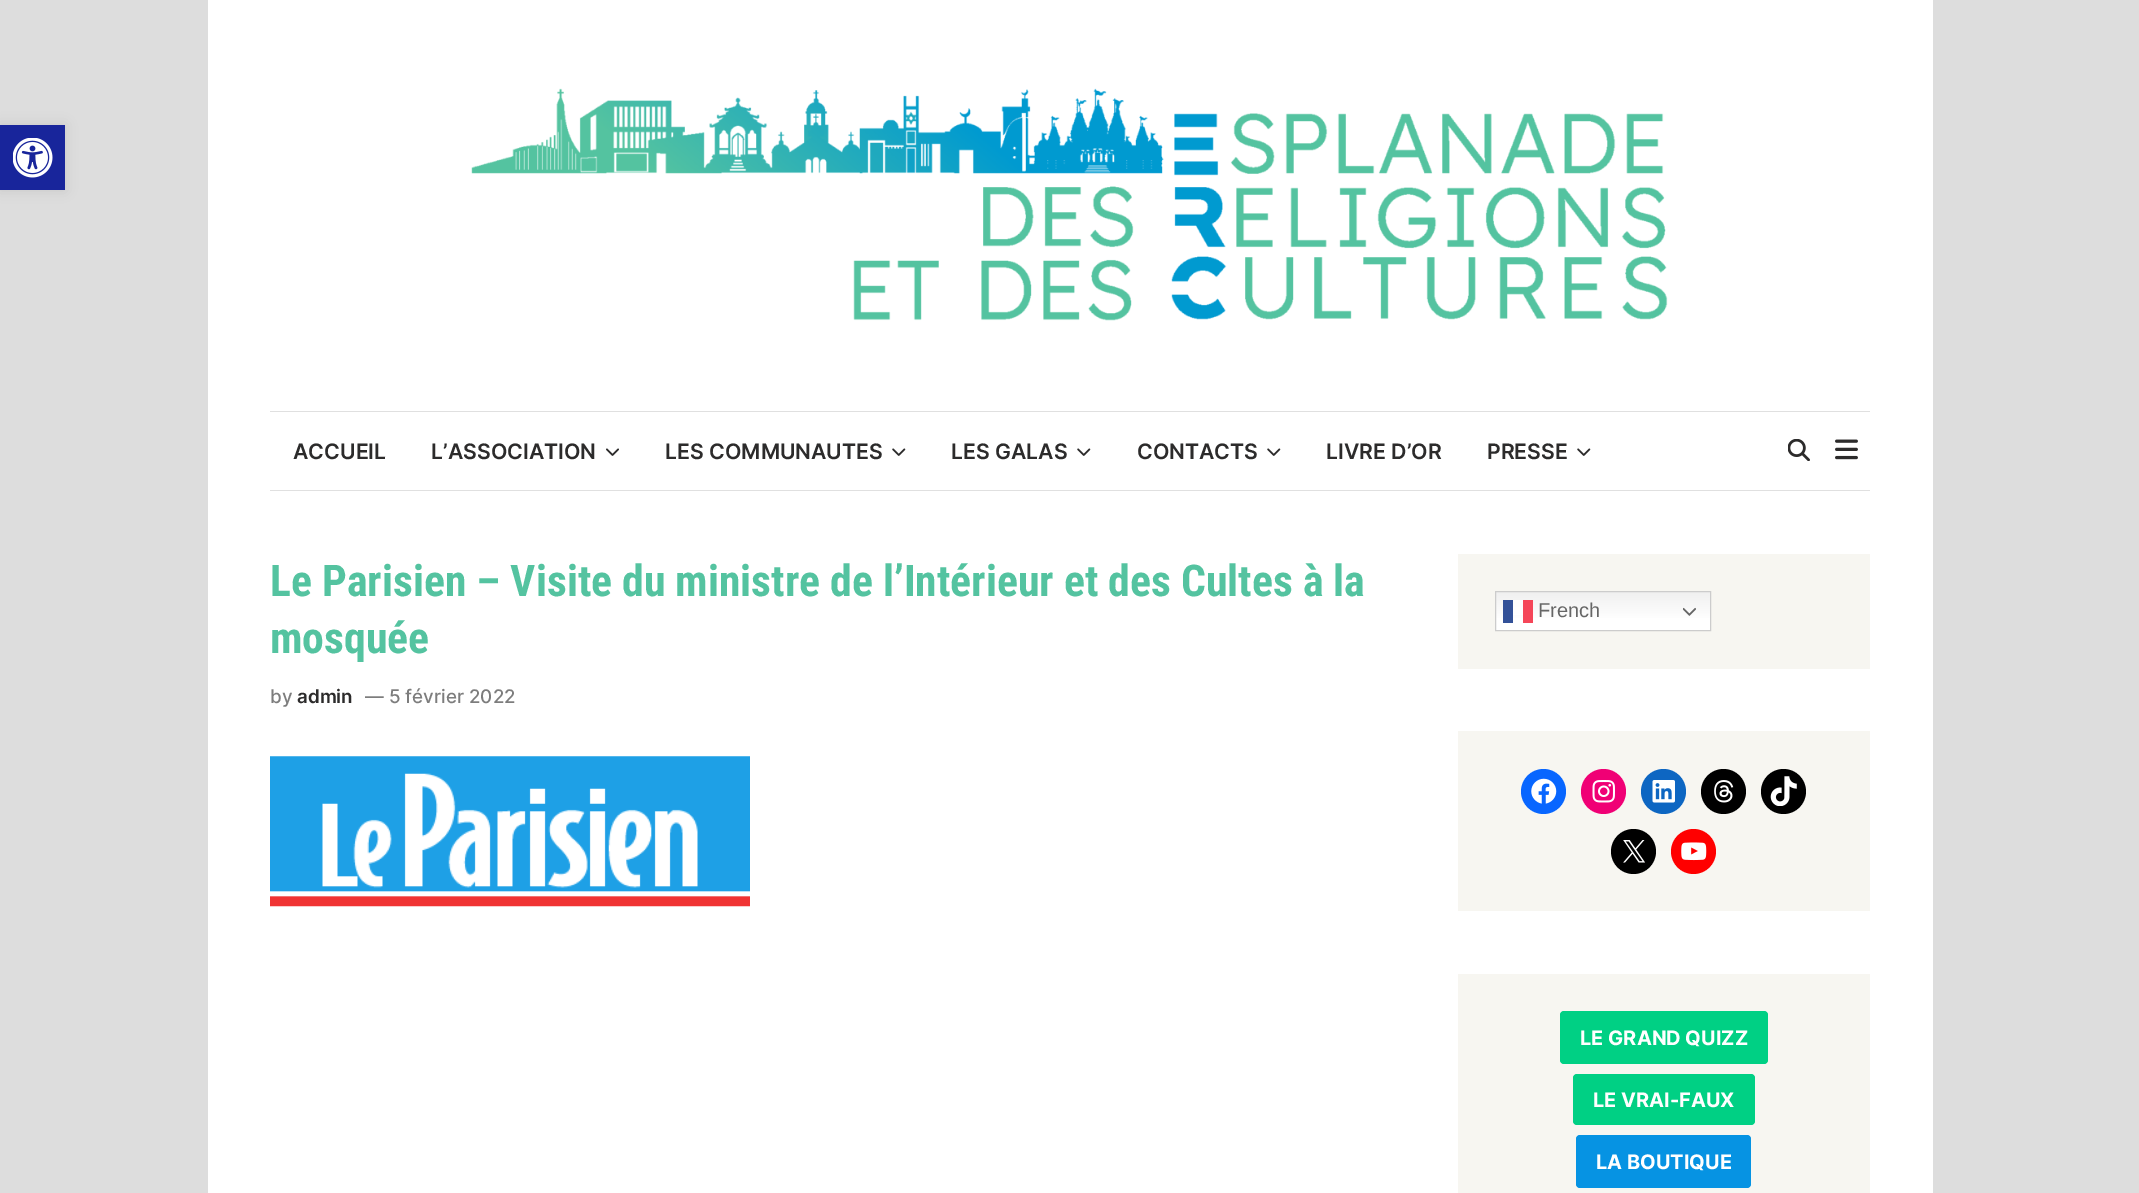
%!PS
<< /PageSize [2139 1193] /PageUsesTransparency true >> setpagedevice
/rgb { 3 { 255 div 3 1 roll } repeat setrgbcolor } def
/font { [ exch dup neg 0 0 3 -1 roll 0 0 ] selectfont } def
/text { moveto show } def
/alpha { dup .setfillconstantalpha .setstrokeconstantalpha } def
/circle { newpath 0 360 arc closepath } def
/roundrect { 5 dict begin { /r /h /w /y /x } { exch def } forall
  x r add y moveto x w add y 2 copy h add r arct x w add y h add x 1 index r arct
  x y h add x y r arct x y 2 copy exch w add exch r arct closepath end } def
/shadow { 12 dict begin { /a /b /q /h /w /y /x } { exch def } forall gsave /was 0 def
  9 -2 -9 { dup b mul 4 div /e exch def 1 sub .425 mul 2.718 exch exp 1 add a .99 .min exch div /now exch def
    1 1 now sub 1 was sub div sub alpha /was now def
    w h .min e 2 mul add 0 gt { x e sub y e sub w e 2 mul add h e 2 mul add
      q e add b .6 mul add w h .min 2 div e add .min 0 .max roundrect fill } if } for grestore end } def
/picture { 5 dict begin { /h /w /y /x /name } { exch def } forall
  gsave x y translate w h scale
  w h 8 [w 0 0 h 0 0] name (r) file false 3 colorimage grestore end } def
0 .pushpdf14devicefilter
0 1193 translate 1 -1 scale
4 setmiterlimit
221 221 221 rgb
0 0 2139 1193 rectfill
0 0 0 rgb
0 125 65 65 0 6 0.1 shadow
24 37 155 rgb
0 125 65 65 rectfill
(img_01.rgb) 13 138 40 40 picture
255 255 255 rgb
208 0 1725 1193 rectfill
(img_02.rgb) 471 88 1197 233 picture
224 224 224 rgb
270 411 1600 1 rectfill
270 490 1600 1 rectfill
(img_03.rgb) 606 448 13 8 picture
(img_04.rgb) 892 448 14 8 picture
(img_04.rgb) 1077 448 14 8 picture
(img_04.rgb) 1267 448 14 8 picture
(img_04.rgb) 1577 448 14 8 picture
(img_05.rgb) 1788 439 22 22 picture
(img_06.rgb) 1835 439 23 21 picture
(img_07.rgb) 270 756 480 151 picture
247 246 241 rgb
1458 554 412 115 rectfill
gsave 1496 592 moveto 214 0 rlineto 0 38 rlineto -214 0 rlineto closepath clip newpath
<< /ShadingType 2 /ColorSpace /DeviceRGB /Coords [1603 591 1603 631] /Extend [true true] /Function << /FunctionType 3 /Domain [0 1] /Functions [<< /FunctionType 2 /Domain [0 1] /C0 [0.937 0.937 0.937] /C1 [1 1 1] /N 1 >> << /FunctionType 2 /Domain [0 1] /C0 [1 1 1] /C1 [1 1 1] /N 1 >>] /Bounds [0.7] /Encode [0 1 0 1] >> >> shfill grestore
gsave 1513 600 moveto 10 0 rlineto 0 15 rlineto -10 0 rlineto closepath clip newpath
<< /ShadingType 2 /ColorSpace /DeviceRGB /Coords [1603 591 1603 631] /Extend [true true] /Function << /FunctionType 3 /Domain [0 1] /Functions [<< /FunctionType 2 /Domain [0 1] /C0 [0.988 0.988 0.988] /C1 [1 1 1] /N 1 >> << /FunctionType 2 /Domain [0 1] /C0 [1 1 1] /C1 [1 1 1] /N 1 >>] /Bounds [0.7] /Encode [0 1 0 1] >> >> shfill grestore
204 204 204 rgb
1495.5 591.5 215 39 rectstroke
51 81 152 rgb
1503 600 10 23 rectfill
245 70 89 rgb
1523 600 10 23 rectfill
(img_08.rgb) 1683 607 13 9 picture
247 246 241 rgb
1458 731 412 180 rectfill
8 102 255 rgb
1543.5 791.5 22.5 circle fill
(img_09.rgb) 1531 778 26 26 picture
240 0 117 rgb
1603.5 791.5 22.5 circle fill
(img_10.rgb) 1592 780 23 23 picture
13 102 194 rgb
1663.5 791.5 22.5 circle fill
(img_11.rgb) 1652 780 23 23 picture
0 0 0 rgb
1723.5 791.5 22.5 circle fill
(img_12.rgb) 1714 780 20 23 picture
1783.5 791.5 22.5 circle fill
(img_13.rgb) 1770 776 27 30 picture
1633.5 851.5 22.5 circle fill
(img_14.rgb) 1623 840 22 23 picture
255 0 0 rgb
1693.5 851.5 22.5 circle fill
(img_15.rgb) 1681 842 26 19 picture
247 246 241 rgb
1458 974 412 219 rectfill
0 208 132 rgb
1560 1011 208 53 4 roundrect fill
1573 1074 182 51 4 roundrect fill
6 147 227 rgb
1576 1135 175 53 4 roundrect fill
/Inter-SemiBold 21.25 font
44 43 43 rgb
(ACCUEIL) 293 459 text
(L’ASSOCIATION) 431 459 text
(LES COMMUNAUTES) 665 459 text
(LES GALAS) 951 459 text
(CONTACTS) 1137 459 text
(LIVRE D’OR) 1326 459 text
(PRESSE) 1487 459 text
/RobotoCondensed-Bold 43.75 font
84 195 160 rgb
(Le Parisien – Visite du ministre de l’Intérieur et des Cultes à la) 270 596 text
(mosquée) 270 653 text
/Inter-Medium 18.75 font
125 125 125 rgb
(by) 270 703 text
/Inter-SemiBold 18.75 font
44 43 43 rgb
(admin) 297 703 text
/Inter-Medium 18.75 font
125 125 125 rgb
(— 5 février 2022) 365 703 text
/LiberationSans-Regular 20 font
102 102 102 rgb
(French) 1538 617 text
/Inter-Bold 20 font
255 255 255 rgb
(LE GRAND QUIZZ) 1580 1045 text
(LE VRAI-FAUX) 1593 1107 text
(LA BOUTIQUE) 1596 1169 text
.poppdf14devicefilter showpage
